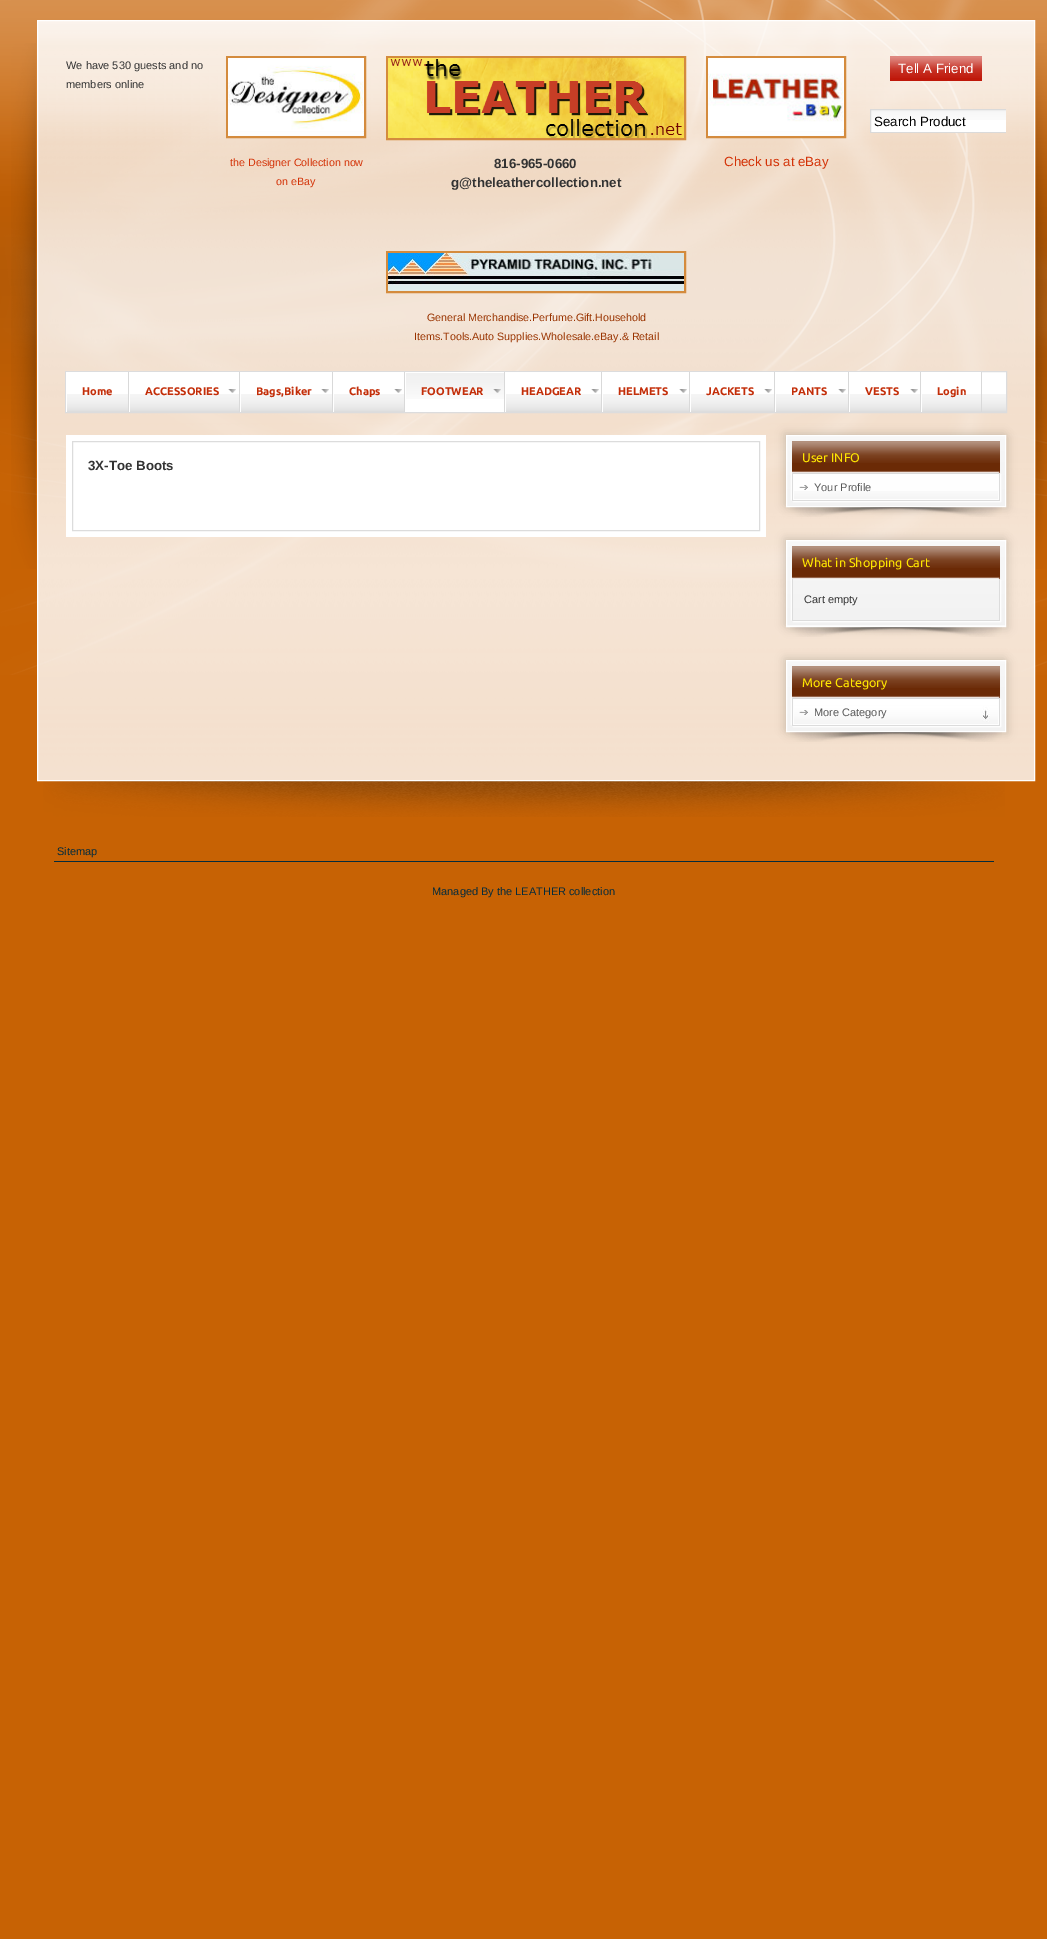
%!PS
<< /PageSize [1047 1939] /PageUsesTransparency true >> setpagedevice
/rgb { 3 { 255 div 3 1 roll } repeat setrgbcolor } def
/font { [ exch dup neg 0 0 3 -1 roll 0 0 ] selectfont } def
/text { moveto show } def
/alpha { dup .setfillconstantalpha .setstrokeconstantalpha } def
/roundrect { 5 dict begin { /r /h /w /y /x } { exch def } forall
  x r add y moveto x w add y 2 copy h add r arct x w add y h add x 1 index r arct
  x y h add x y r arct x y 2 copy exch w add exch r arct closepath end } def
/shadow { 12 dict begin { /a /b /q /h /w /y /x } { exch def } forall gsave /was 0 def
  9 -2 -9 { dup b mul 4 div /e exch def 1 sub .425 mul 2.718 exch exp 1 add a .99 .min exch div /now exch def
    1 1 now sub 1 was sub div sub alpha /was now def
    w h .min e 2 mul add 0 gt { x e sub y e sub w e 2 mul add h e 2 mul add
      q e add b .6 mul add w h .min 2 div e add .min 0 .max roundrect fill } if } for grestore end } def
/picture { 5 dict begin { /h /w /y /x /name } { exch def } forall
  gsave x y translate w h scale
  w h 8 [w 0 0 h 0 0] name (r) file false 3 colorimage grestore end } def
0 .pushpdf14devicefilter
0 1939 translate 1 -1 scale
4 setmiterlimit
199 98 4 rgb
0 0 1047 1939 rectfill
(img_01.rgb) 0 0 1047 675 picture
(img_02.rgb) 11 43 1036 526 picture
(img_03.rgb) 43 781 962 36 picture
(img_04.rgb) 38 21 996 759 picture
255 255 255 rgb
37.5 20.5 997 760 rectstroke
191 24 10 rgb
890 56 92 25 rectfill
(img_05.rgb) 890 56 92 22 picture
255 255 255 rgb
871 120 135 12 rectfill
(img_06.rgb) 871 110 135 10 picture
gsave
866 91 140 42 rectclip
218 218 218 rgb
870.5 109.5 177 23 rectstroke
grestore
212 139 61 rgb
2 setlinewidth
227 57 138 80 rectstroke
(img_07.rgb) 228 58 136 78 picture
387 57 298 82 rectstroke
(img_08.rgb) 388 58 296 80 picture
387 252 298 40 rectstroke
(img_09.rgb) 388 253 296 38 picture
707 57 138 80 rectstroke
(img_10.rgb) 708 58 136 78 picture
255 255 255 rgb
982 372 24 22 rectfill
(img_11.rgb) 982 394 24 18 picture
220 220 221 rgb
1 setlinewidth
65.5 371.5 941 41 rectstroke
255 255 255 rgb
67 372 61 22 rectfill
(img_12.rgb) 67 394 61 18 picture
217 217 217 rgb
128 372 1 40 rectfill
255 255 255 rgb
66 372 1 40 rectfill
130 372 109 22 rectfill
(img_13.rgb) 130 394 109 18 picture
217 217 217 rgb
239 372 1 40 rectfill
255 255 255 rgb
129 372 1 40 rectfill
(img_14.rgb) 228 389 8 4 picture
241 372 91 22 rectfill
(img_15.rgb) 241 394 91 18 picture
217 217 217 rgb
332 372 1 40 rectfill
255 255 255 rgb
240 372 1 40 rectfill
(img_14.rgb) 321 389 8 4 picture
334 372 70 22 rectfill
(img_16.rgb) 334 394 70 18 picture
217 217 217 rgb
404 372 1 40 rectfill
255 255 255 rgb
333 372 1 40 rectfill
(img_14.rgb) 394 389 8 4 picture
405 372 99 40 rectfill
(img_17.rgb) 406 373 98 26 picture
217 217 217 rgb
504 372 1 40 rectfill
(img_18.rgb) 493 389 8 4 picture
255 255 255 rgb
506 372 95 22 rectfill
(img_19.rgb) 506 394 95 18 picture
217 217 217 rgb
601 372 1 40 rectfill
255 255 255 rgb
505 372 1 40 rectfill
(img_14.rgb) 591 389 8 4 picture
603 372 86 22 rectfill
(img_20.rgb) 603 394 86 18 picture
217 217 217 rgb
689 372 1 40 rectfill
255 255 255 rgb
602 372 1 40 rectfill
(img_14.rgb) 679 389 8 4 picture
691 372 83 22 rectfill
(img_21.rgb) 691 394 83 18 picture
217 217 217 rgb
774 372 1 40 rectfill
255 255 255 rgb
690 372 1 40 rectfill
(img_14.rgb) 764 389 8 4 picture
776 372 72 22 rectfill
(img_22.rgb) 776 394 72 18 picture
217 217 217 rgb
848 372 1 40 rectfill
255 255 255 rgb
775 372 1 40 rectfill
(img_14.rgb) 838 389 8 4 picture
850 372 70 22 rectfill
(img_16.rgb) 850 394 70 18 picture
217 217 217 rgb
920 372 1 40 rectfill
255 255 255 rgb
849 372 1 40 rectfill
(img_14.rgb) 910 389 8 4 picture
922 372 59 22 rectfill
(img_23.rgb) 922 394 59 18 picture
217 217 217 rgb
981 372 1 40 rectfill
255 255 255 rgb
921 372 1 40 rectfill
66 435 700 102 rectfill
220 220 220 rgb
72.5 441.5 687 89 rectstroke
(img_24.rgb) 790 507 164 10 picture
(img_25.rgb) 839 507 163 10 picture
0 0 0 rgb
784 433 220 72 0 4.5 0.1 shadow
788 437 220 72 0 4.5 0.1 shadow
255 255 255 rgb
787 436 218 70 rectfill
(img_26.rgb) 787 436 218 70 picture
786.5 435.5 219 71 rectstroke
107 42 6 rgb
792 441 208 32 rectfill
(img_27.rgb) 792 441 208 22 picture
255 255 255 rgb
791 472 208 28 0 0.5 1 shadow
793 474 208 28 0 0.5 1 shadow
220 220 220 rgb
999 473 1 28 rectfill
792 500 208 1 rectfill
792 473 1 28 rectfill
217 217 217 rgb
793 473 206 1 rectfill
(img_28.rgb) 794 491 204 8 picture
(img_29.rgb) 799 485 9 5 picture
(img_30.rgb) 790 627 164 10 picture
(img_31.rgb) 839 627 163 10 picture
0 0 0 rgb
784 538 220 87 0 4.5 0.1 shadow
788 542 220 87 0 4.5 0.1 shadow
255 255 255 rgb
787 541 218 85 rectfill
(img_32.rgb) 787 541 218 85 picture
786.5 540.5 219 86 rectstroke
107 42 6 rgb
792 546 208 33 rectfill
(img_27.rgb) 792 546 208 22 picture
gsave
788 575 moveto 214 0 rlineto 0 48 rlineto -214 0 rlineto closepath 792 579 moveto 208 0 rlineto 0 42 rlineto -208 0 rlineto closepath eoclip newpath
255 255 255 rgb
791 578 208 42 0 0.5 1 shadow
grestore
gsave
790 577 moveto 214 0 rlineto 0 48 rlineto -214 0 rlineto closepath 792 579 moveto 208 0 rlineto 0 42 rlineto -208 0 rlineto closepath eoclip newpath
255 255 255 rgb
793 580 208 42 0 0.5 1 shadow
grestore
220 220 220 rgb
999 579 1 42 rectfill
792 620 208 1 rectfill
792 579 1 42 rectfill
(img_33.rgb) 790 732 164 10 picture
(img_34.rgb) 839 732 163 10 picture
0 0 0 rgb
784 658 220 72 0 4.5 0.1 shadow
788 662 220 72 0 4.5 0.1 shadow
255 255 255 rgb
787 661 218 70 rectfill
(img_26.rgb) 787 661 218 70 picture
786.5 660.5 219 71 rectstroke
107 42 6 rgb
792 666 208 32 rectfill
(img_27.rgb) 792 666 208 22 picture
255 255 255 rgb
791 697 208 28 0 0.5 1 shadow
793 699 208 28 0 0.5 1 shadow
220 220 220 rgb
999 698 1 28 rectfill
792 725 208 1 rectfill
792 698 1 28 rectfill
217 217 217 rgb
793 698 206 1 rectfill
(img_35.rgb) 794 700 204 24 picture
(img_36.rgb) 799 710 9 5 picture
4 43 60 rgb
54 861 940 1 rectfill
/LiberationSans-Regular 11 font
51 51 51 rgb
(We have 530 guests and no) 66 69 text
(members online) 66 88 text
/LiberationSans-Regular 13.3 font
255 255 255 rgb
(Tell A Friend) 898 73 text
0 0 0 rgb
(Search Product) 874 126 text
/LiberationSans-Regular 10.7 font
211 50 7 rgb
(the Designer Collection now) 230 166 text
(on eBay) 276 185 text
/LiberationSans-Bold 13.3 font
51 51 51 rgb
(816-965-0660) 494 168 text
(g@theleathercollection.net) 451 187 text
/LiberationSans-Regular 10.7 font
153 51 0 rgb
(General Merchandise.Perfume.Gift.Household) 427 321 text
(Items.Tools.Auto Supplies.Wholesale.eBay.& Retail) 414 340 text
/LiberationSans-Regular 13.3 font
211 50 7 rgb
(Check us at eBay) 724 166 text
/Ubuntu-Bold 11 font
195 46 9 rgb
(Home) 82 395 text
(ACCESSORIES) 145 395 text
(Bags,Biker) 256 395 text
(Chaps) 349 395 text
(FOOTWEAR) 421 395 text
(HEADGEAR) 521 395 text
(HELMETS) 618 395 text
(JACKETS) 706 395 text
(PANTS) 791 395 text
(VESTS) 865 395 text
(Login) 937 395 text
/LiberationSans-Bold 13.3 font
51 51 51 rgb
(3X-Toe Boots) 88 470 text
/Ubuntu-Regular 12.6 font
255 230 0 rgb
(User INFO) 802 462 text
/LiberationSans-Regular 11 font
87 87 87 rgb
(Your Profile) 814 491 text
/Ubuntu-Regular 12.6 font
255 230 0 rgb
(What in Shopping Cart) 802 567 text
/LiberationSans-Regular 11 font
51 51 51 rgb
(Cart empty) 804 603 text
/Ubuntu-Regular 12.6 font
255 230 0 rgb
(More Category) 802 687 text
/LiberationSans-Regular 11 font
87 87 87 rgb
(More Category) 814 716 text
4 43 60 rgb
(Sitemap) 57 855 text
(Managed By the LEATHER collection) 432 895 text
.poppdf14devicefilter showpage
